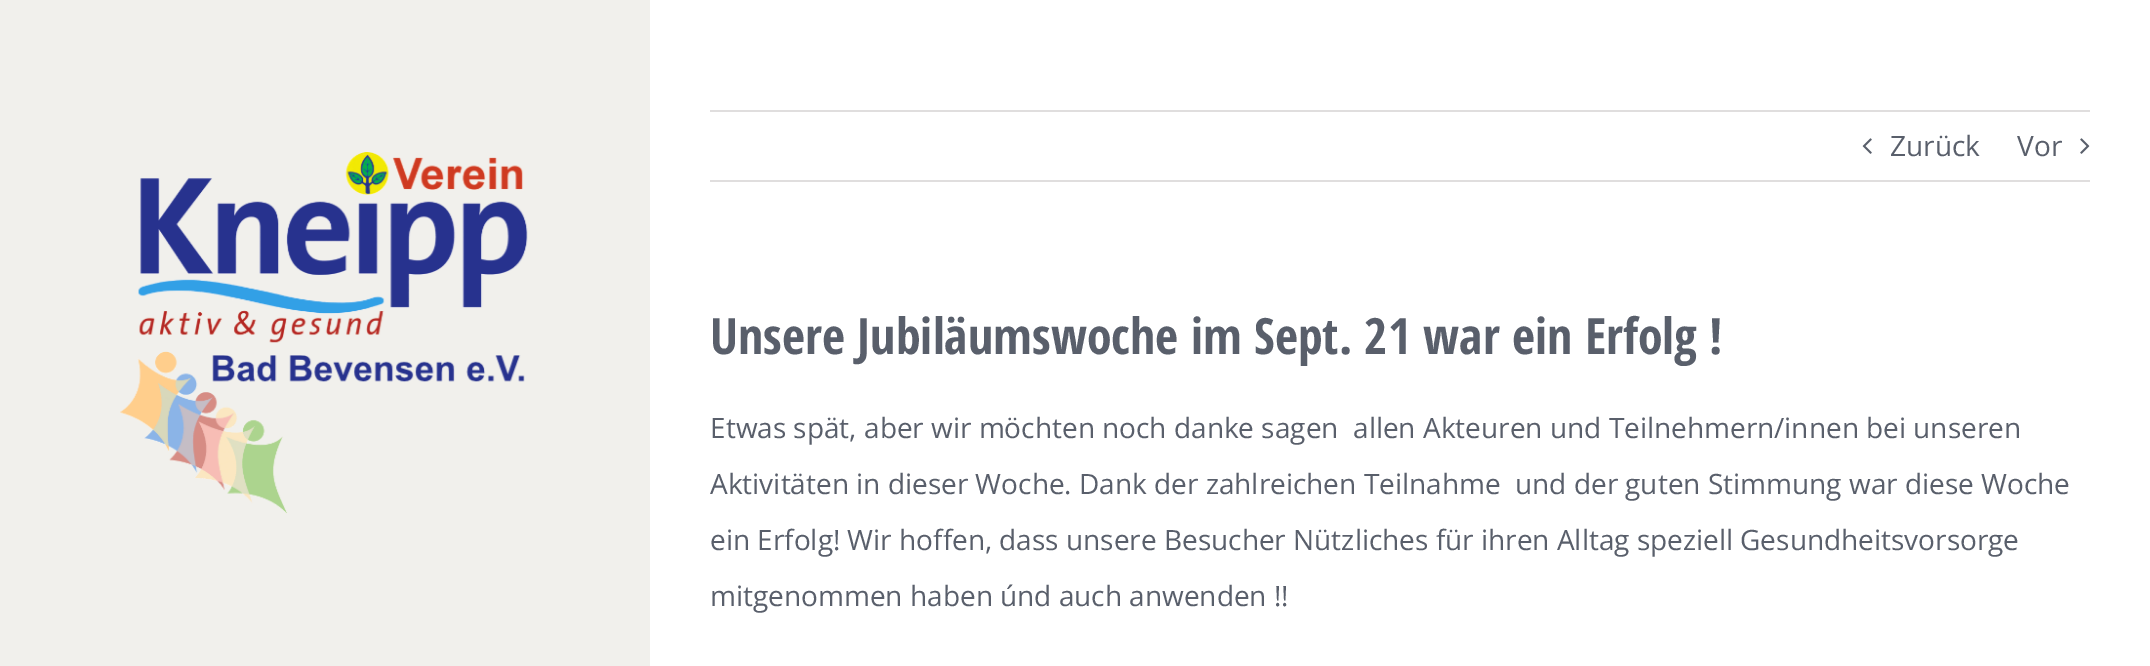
%!PS
<< /PageSize [2150 666] >> setpagedevice
/rgb { 3 { 255 div 3 1 roll } repeat setrgbcolor } def
/font { [ exch dup neg 0 0 3 -1 roll 0 0 ] selectfont } def
/text { moveto show } def
/picture { 5 dict begin { /h /w /y /x /name } { exch def } forall
  gsave x y translate w h scale
  w h 8 [w 0 0 h 0 0] name (r) file false 3 colorimage grestore end } def
0 666 translate 1 -1 scale
4 setmiterlimit
255 255 255 rgb
0 0 2150 666 rectfill
241 240 236 rgb
0 0 650 666 rectfill
(img_01.rgb) 120 152 408 362 picture
224 222 222 rgb
710 110 1380 2 rectfill
710 180 1380 2 rectfill
(img_02.rgb) 1862 138 10 16 picture
(img_03.rgb) 2080 138 10 16 picture
/OpenSans-Regular 28 font
89 95 107 rgb
(Zurück) 1890 156 text
(Vor) 2017 156 text
/OpenSansCondensed-Bold 50 font
(Unsere Jubiläumswoche im Sept. 21 war ein Erfolg !) 710 354 text
/OpenSans-Regular 28 font
(Etwas spät, aber wir möchten noch danke sagen  allen Akteuren und Teilnehmern/innen bei unseren) 710 438 text
(Aktivitäten in dieser Woche. Dank der zahlreichen Teilnahme  und der guten Stimmung war diese Woche) 710 494 text
(ein Erfolg! Wir hoffen, dass unsere Besucher Nützliches für ihren Alltag speziell Gesundheitsvorsorge) 710 550 text
(mitgenommen haben únd auch anwenden !!) 710 606 text
showpage
